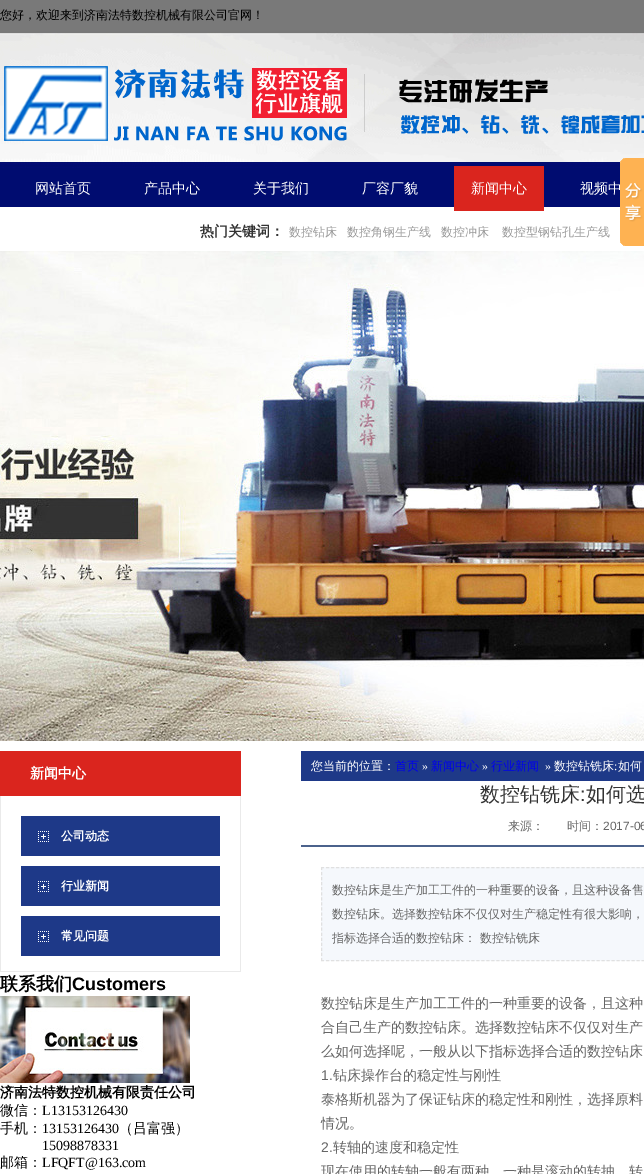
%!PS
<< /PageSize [644 1174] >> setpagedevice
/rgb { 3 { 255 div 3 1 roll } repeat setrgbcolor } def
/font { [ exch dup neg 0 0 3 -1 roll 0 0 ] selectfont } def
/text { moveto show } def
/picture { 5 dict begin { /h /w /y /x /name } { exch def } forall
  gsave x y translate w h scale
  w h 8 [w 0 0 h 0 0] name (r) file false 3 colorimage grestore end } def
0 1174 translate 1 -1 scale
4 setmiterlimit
255 255 255 rgb
0 0 644 1174 rectfill
(img_01.rgb) 0 0 644 207 picture
(img_02.rgb) 4 66 640 75 picture
218 37 30 rgb
454 166 90 45 rectfill
(img_03.rgb) 0 251 644 490 picture
0 751 241 45 rectfill
234 234 234 rgb
240 796 1 176 rectfill
0 971 241 1 rectfill
0 796 1 176 rectfill
30 57 136 rgb
21 816 199 40 rectfill
(img_04.rgb) 38 831 11 11 picture
21 866 199 40 rectfill
(img_04.rgb) 38 881 11 11 picture
21 916 199 40 rectfill
(img_04.rgb) 38 931 11 11 picture
(img_05.rgb) 0 996 190 87 picture
301 751 343 30 rectfill
75 98 140 rgb
301 845 343 2 rectfill
245 248 252 rgb
321 867 323 94 rectfill
224 224 224 rgb
[3 2.01] 0 setdash
321 867.5 moveto 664 0 rlineto stroke
321 960.5 moveto 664 0 rlineto stroke
[3 2.06] 0 setdash
321.5 867 moveto 0 94 rlineto stroke
/WenQuanYiZenHei-Medium 12 font
0 0 0 rgb
(您好，欢迎来到济南法特数控机械有限公司官网！) 0 19 text
/WenQuanYiZenHei-Medium 14 font
255 255 255 rgb
(网站首页) 35 193 text
(产品中心) 144 193 text
(关于我们) 253 193 text
(厂容厂貌) 362 193 text
(新闻中心) 471 193 text
(视频中) 580 193 text
/WenQuanYiZenHei-Bold 14 font
51 51 51 rgb
(热门关键词：) 200 236 text
/WenQuanYiZenHei-Medium 12 font
153 153 153 rgb
(数控钻床) 289 236 text
(数控角钢生产线) 347 236 text
(数控冲床) 441 236 text
(数控型钢钻孔生产线) 502 236 text
/WenQuanYiZenHei-Bold 14 font
255 255 255 rgb
(新闻中心) 30 778 text
/WenQuanYiZenHei-Bold 12 font
(公司动态) 61 840 text
(行业新闻) 61 890 text
(常见问题) 61 940 text
/WenQuanYiZenHei-Bold 18 font
0 0 0 rgb
(联系我们) 0 990 text
/LiberationSans-Bold 18 font
(Customers) 72 990 text
/WenQuanYiZenHei-Bold 14 font
(济南法特数控机械有限责任公司) 0 1097 text
/WenQuanYiZenHei-Medium 14 font
(微信：) 0 1115 text
/LiberationSerif-Regular 14 font
(L13153126430) 42 1115 text
/WenQuanYiZenHei-Medium 14 font
(手机：) 0 1133 text
/LiberationSerif-Regular 14 font
(13153126430) 42 1133 text
/WenQuanYiZenHei-Medium 14 font
(（吕富强）) 119 1133 text
/LiberationSerif-Regular 14 font
(15098878331) 42 1150 text
/WenQuanYiZenHei-Medium 14 font
(邮箱：) 0 1167 text
/LiberationSerif-Regular 14 font
(LFQFT@163.com) 42 1167 text
/WenQuanYiZenHei-Medium 12 font
255 255 255 rgb
(您当前的位置：) 311 770 text
0 0 238 rgb
(首页) 395 770 text
(新闻中心) 431 770 text
(行业新闻) 491 770 text
255 255 255 rgb
(数控钻铣床 如何) 554 770 text
/LiberationSerif-Regular 12 font
(») 422 770 text
(») 482 770 text
(») 545 770 text
(:) 614 770 text
/WenQuanYiZenHei-Medium 20 font
51 51 51 rgb
(数控钻铣床) 480 801 text
/LiberationSans-Regular 20 font
(:) 580 801 text
/WenQuanYiZenHei-Medium 20 font
(如何选) 586 801 text
/WenQuanYiZenHei-Medium 12 font
102 102 102 rgb
(来源：) 508 830 text
(时间：) 567 830 text
/LiberationSans-Regular 12 font
(2017-06) 603 830 text
/WenQuanYiZenHei-Medium 12 font
(数控钻床是生产加工工件的一种重要的设备，且这种设备售) 332 894 text
(数控钻床。选择数控钻床不仅仅对生产稳定性有很大影响，) 332 918 text
(指标选择合适的数控钻床： 数控钻铣床) 332 942 text
/WenQuanYiZenHei-Medium 14 font
(数控钻床是生产加工工件的一种重要的设备，且这种) 321 1008 text
(合自己生产的数控钻床。选择数控钻床不仅仅对生产) 321 1032 text
(么如何选择呢，一般从以下指标选择合适的数控钻床) 321 1056 text
/LiberationSans-Regular 14 font
(1.) 321 1080 text
/WenQuanYiZenHei-Medium 14 font
(钻床操作台的稳定性与刚性) 333 1080 text
(泰格斯机器为了保证钻床的稳定性和刚性，选择原料) 321 1104 text
(情况。) 321 1128 text
/LiberationSans-Regular 14 font
(2.) 321 1152 text
/WenQuanYiZenHei-Medium 14 font
(转轴的速度和稳定性) 333 1152 text
(现在使用的转轴一般有两种，一种是滚动的转抽，转) 321 1176 text
(img_06.rgb) 620 158 24 88 picture
showpage
